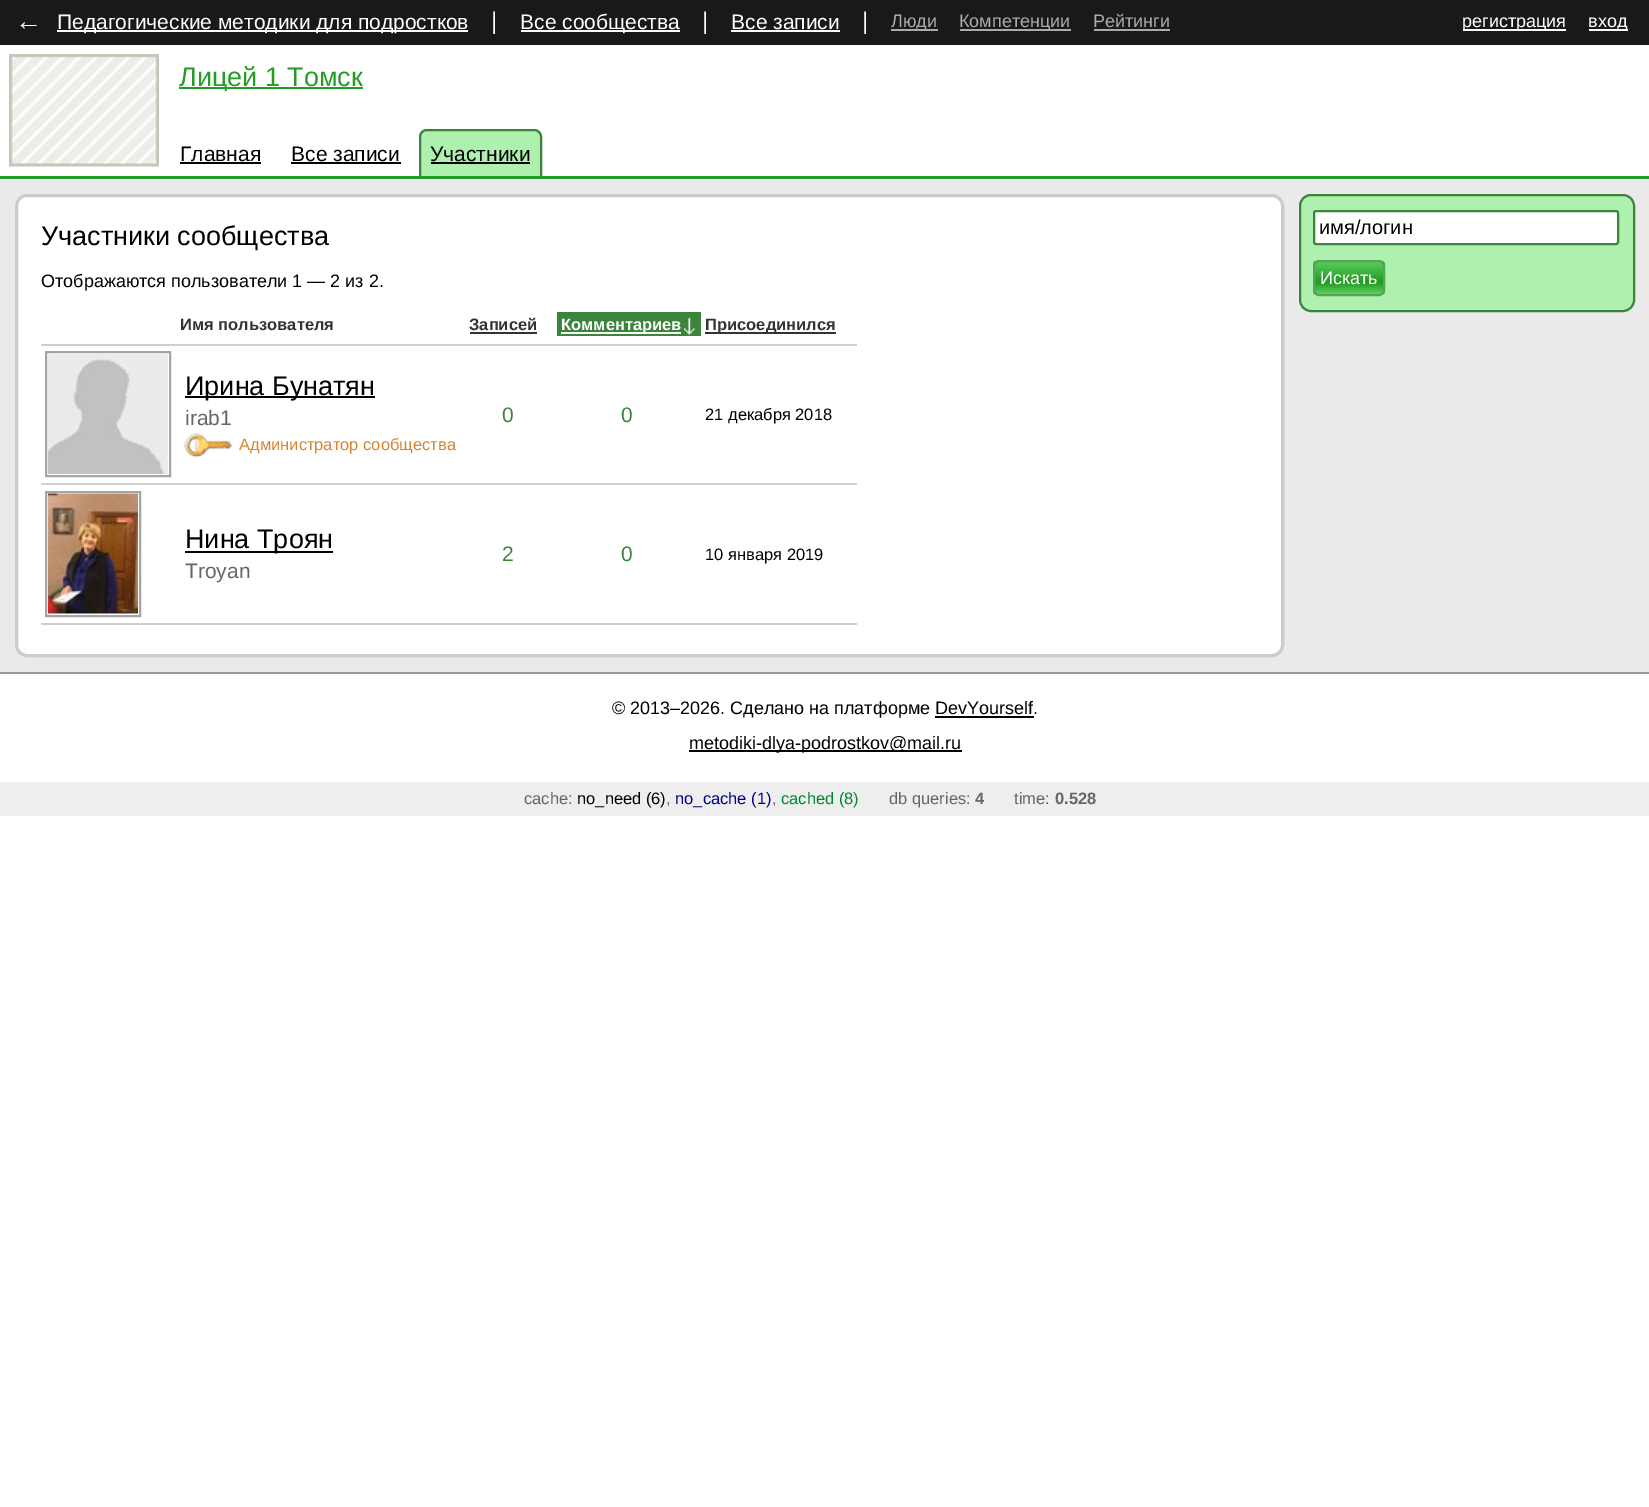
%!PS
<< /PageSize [1649 1507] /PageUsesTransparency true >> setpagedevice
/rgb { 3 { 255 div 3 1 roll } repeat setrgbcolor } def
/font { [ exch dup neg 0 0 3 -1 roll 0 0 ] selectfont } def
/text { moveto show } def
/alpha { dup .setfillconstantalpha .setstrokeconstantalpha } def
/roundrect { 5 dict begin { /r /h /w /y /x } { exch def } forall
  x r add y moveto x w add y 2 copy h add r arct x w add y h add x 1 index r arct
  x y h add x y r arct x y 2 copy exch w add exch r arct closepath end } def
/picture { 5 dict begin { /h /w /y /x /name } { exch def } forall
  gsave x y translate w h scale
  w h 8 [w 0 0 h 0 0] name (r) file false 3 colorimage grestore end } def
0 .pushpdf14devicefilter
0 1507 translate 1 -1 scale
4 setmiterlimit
255 255 255 rgb
0 0 1649 1507 rectfill
25 25 25 rgb
0 0 1649 45 rectfill
255 255 255 rgb
57 30 411 2 rectfill
521 30 159 2 rectfill
731 30 109 2 rectfill
170 170 170 rgb
891 29 47 2 rectfill
960 29 111 2 rectfill
1094 29 76 2 rectfill
255 255 255 rgb
1463 29 103 2 rectfill
1589 29 39 2 rectfill
37 156 37 rgb
0 176 1649 3 rectfill
(img_01.rgb) 9 54 150 113 picture
179 87 184 2 rectfill
0 0 0 rgb
180 162 81 2 rectfill
291 162 110 2 rectfill
174 240 174 rgb
427 129 moveto 107 0 rlineto 4.5 0 8 3.5 8 8 rcurveto 0 39 rlineto -123 0 rlineto 0 -39 rlineto 0 -4.5 3.5 -8 8 -8 rcurveto closepath fill
gsave
168 129 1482 47 rectclip
60 132 60 rgb
2 setlinewidth
427 130 moveto 107 0 rlineto 4 0 7 3 7 7 rcurveto 0 41 rlineto -121 0 rlineto 0 -41 rlineto 0 -4 3 -7 7 -7 rcurveto closepath stroke
grestore
0 0 0 rgb
431 162 99 2 rectfill
234 234 234 rgb
0 179 1649 493 rectfill
255 255 255 rgb
15 194 1269 463 12 roundrect fill
0.2 alpha
0 0 0 rgb
3 setlinewidth
16.5 195.5 1266 460 10.5 roundrect stroke
1 alpha
51 51 51 rgb
470 332 67 2 rectfill
60 132 60 rgb
557 312 144 24 rectfill
255 255 255 rgb
561 332 120 2 rectfill
(img_02.rgb) 684 317 11 18 picture
207 207 207 rgb
41 344 816 2 rectfill
51 51 51 rgb
705 332 131 2 rectfill
164 164 164 rgb
2 setlinewidth
46 352 124 124 rectstroke
(img_03.rgb) 48 354 120 120 picture
0 0 0 rgb
185 396 190 2 rectfill
(img_04.rgb) 184 433 49 25 picture
207 207 207 rgb
41 483 816 2 rectfill
164 164 164 rgb
46 492 94 124 rectstroke
(img_05.rgb) 48 493 90 121 picture
0 0 0 rgb
185 551 148 2 rectfill
207 207 207 rgb
41 623 816 2 rectfill
174 240 174 rgb
1300 195 334 116 11 roundrect gsave fill grestore
60 132 60 rgb
stroke
255 255 255 rgb
1314 211 304 33 2 roundrect gsave fill grestore
60 132 60 rgb
stroke
gsave
1313 260 72 36 6 roundrect clip newpath
gsave 1313 261 moveto 72 0 rlineto 0 33 rlineto -72 0 rlineto closepath clip newpath
<< /ShadingType 2 /ColorSpace /DeviceRGB /Coords [1349 261 1349 294] /Extend [true true] /Function << /FunctionType 3 /Domain [0 1] /Functions [<< /FunctionType 2 /Domain [0 1] /C0 [0.357 0.812 0.357] /C1 [0.137 0.596 0.137] /N 1 >> << /FunctionType 2 /Domain [0 1] /C0 [0.137 0.596 0.137] /C1 [0.361 0.82 0.361] /N 1 >>] /Bounds [0.64] /Encode [0 1 0 1] >> >> shfill grestore
grestore
83 165 83 rgb
1314 261 70 34 5 roundrect stroke
153 153 153 rgb
0 672 1649 2 rectfill
0 0 0 rgb
935 716 99 2 rectfill
689 750 273 2 rectfill
238 238 238 rgb
0 782 1649 34 rectfill
/LiberationSans-Regular 27 font
255 255 255 rgb
(←) 15 30 text
/LiberationSans-Regular 21 font
(Педагогические методики для подростков) 57 29 text
/LiberationSans-Regular 24 font
(|) 491 29 text
/LiberationSans-Regular 21 font
(Все сообщества) 520 29 text
/LiberationSans-Regular 24 font
(|) 702 29 text
/LiberationSans-Regular 21 font
(Все записи) 731 29 text
/LiberationSans-Regular 24 font
(|) 862 29 text
/LiberationSans-Regular 18 font
170 170 170 rgb
(Люди) 891 27 text
(Компетенции) 959 27 text
(Рейтинги) 1093 27 text
255 255 255 rgb
(регистрация) 1462 27 text
(вход) 1588 27 text
/LiberationSans-Regular 27 font
37 156 37 rgb
(Лицей 1 Томск) 179 86 text
/LiberationSans-Regular 21 font
0 0 0 rgb
(Главная) 180 161 text
(Все записи) 291 161 text
(Участники) 430 161 text
/LiberationSans-Regular 27 font
(Участники сообщества) 41 245 text
/LiberationSans-Regular 18 font
(Отображаются пользователи 1 — 2 из 2.) 41 287 text
/LiberationSans-Bold 16.5 font
51 51 51 rgb
(Имя пользователя) 180 330 text
(Записей) 469 330 text
255 255 255 rgb
(Комментариев) 561 330 text
51 51 51 rgb
(Присоединился) 705 330 text
/LiberationSans-Regular 27 font
0 0 0 rgb
(Ирина Бунатян) 185 395 text
/LiberationSans-Regular 21 font
102 102 102 rgb
(irab1) 185 425 text
/LiberationSans-Regular 16.5 font
214 132 49 rgb
(Администратор сообщества) 239 450 text
/LiberationSans-Regular 21 font
60 132 60 rgb
(0) 502 422 text
(0) 621 422 text
/LiberationSans-Regular 16.5 font
0 0 0 rgb
(21 декабря 2018) 705 420 text
/LiberationSans-Regular 27 font
(Нина Троян) 185 548 text
/LiberationSans-Regular 21 font
102 102 102 rgb
(Troyan) 185 578 text
60 132 60 rgb
(2) 502 561 text
(0) 621 561 text
/LiberationSans-Regular 16.5 font
0 0 0 rgb
(10 января 2019) 705 560 text
/LiberationSans-Regular 20 font
(имя/логин) 1319 234 text
/LiberationSans-Regular 18 font
255 255 255 rgb
(Искать) 1320 284 text
0 0 0 rgb
(© 2013–2026. Сделано на платформе DevYourself.) 612 714 text
(metodiki-dlya-podrostkov@mail.ru) 689 749 text
/LiberationSans-Regular 16.5 font
102 102 102 rgb
(cache:) 524 804 text
0 0 0 rgb
(no_need \(6\)) 577 804 text
102 102 102 rgb
(,) 666 804 text
0 0 136 rgb
(no_cache \(1\)) 675 804 text
102 102 102 rgb
(,) 772 804 text
0 136 53 rgb
(cached \(8\)) 781 804 text
102 102 102 rgb
(db queries:) 889 804 text
/LiberationSans-Bold 16.5 font
(4) 975 804 text
/LiberationSans-Regular 16.5 font
(time:) 1014 804 text
/LiberationSans-Bold 16.5 font
(0.528) 1055 804 text
.poppdf14devicefilter showpage
